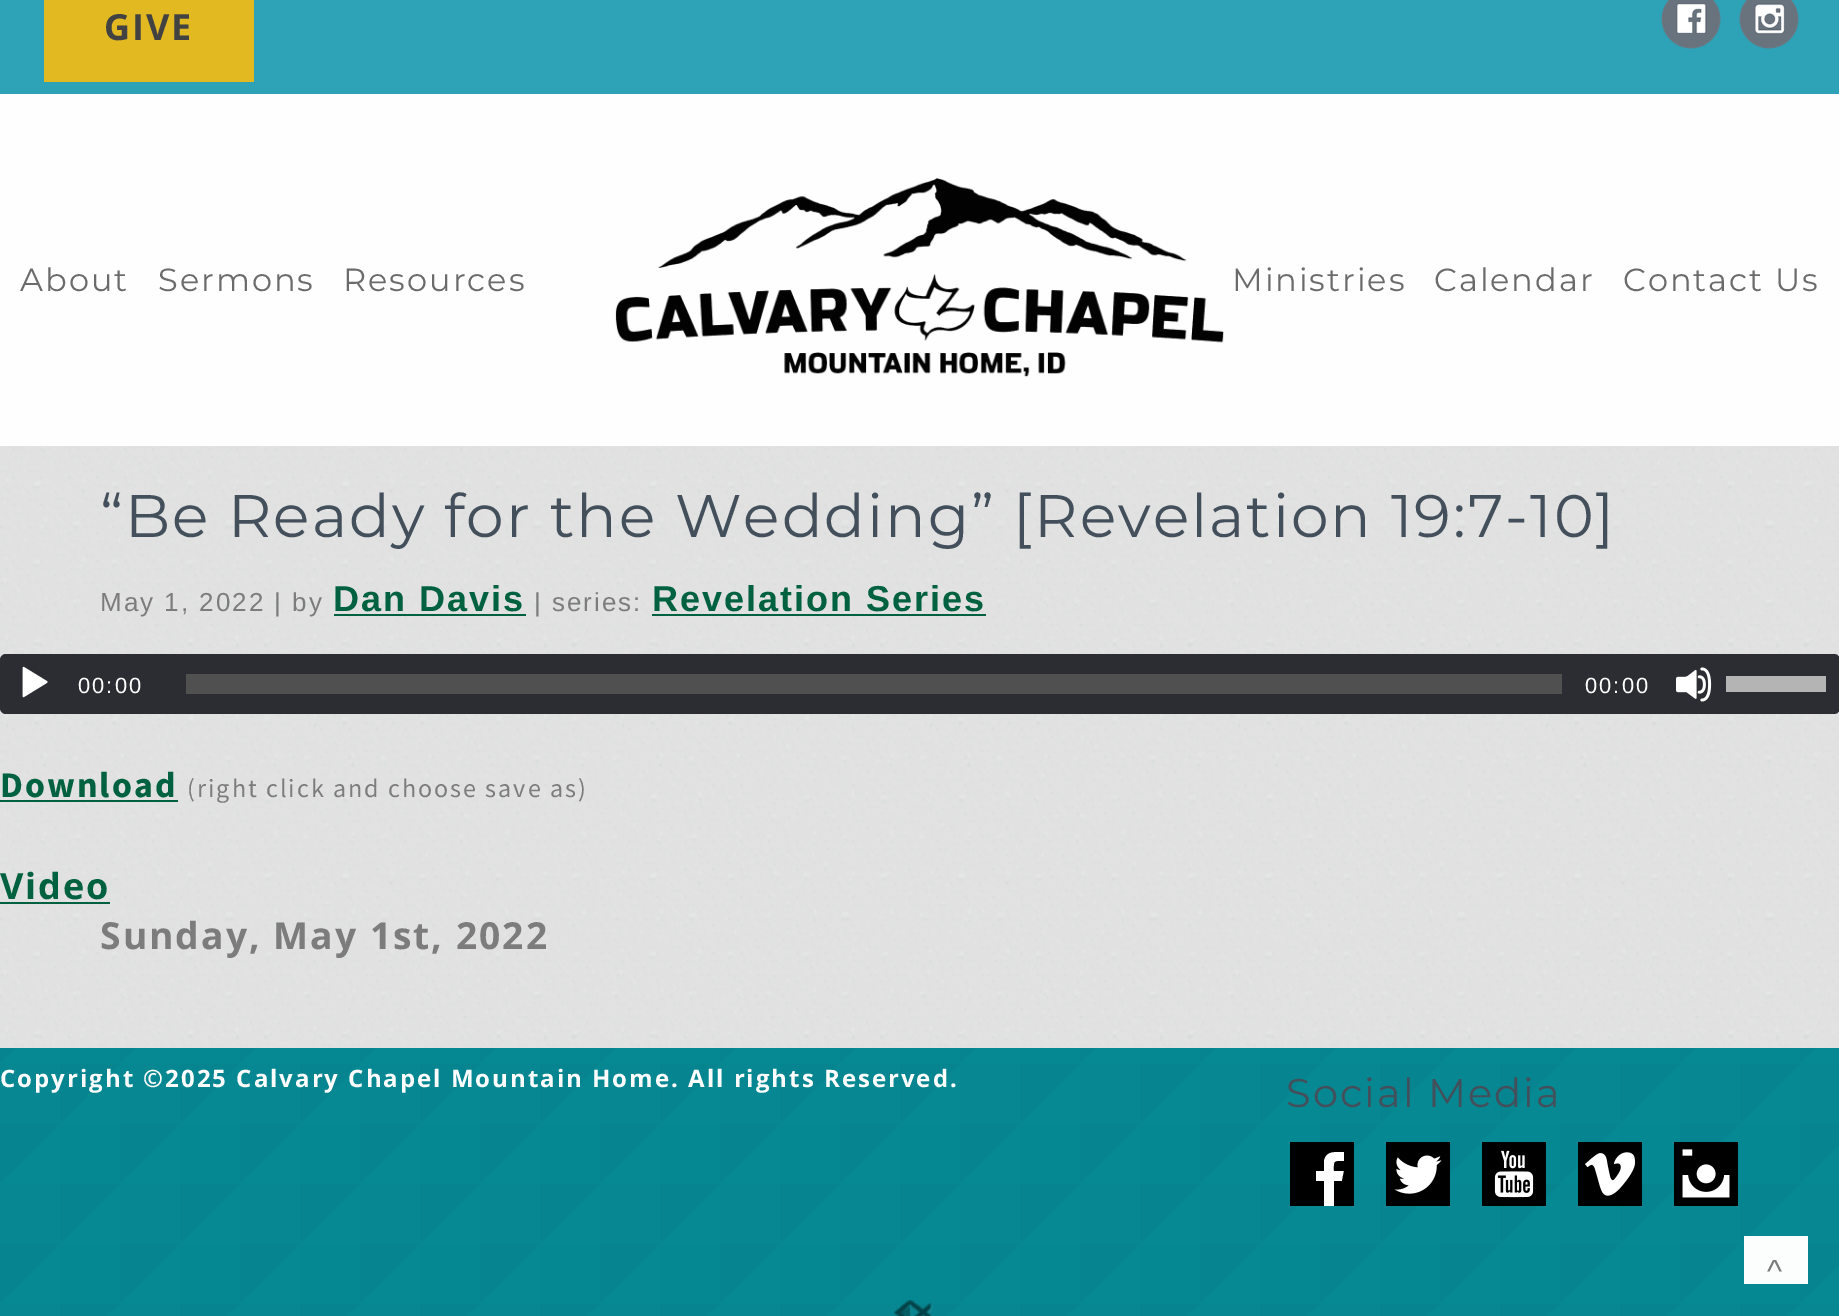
%!PS
<< /PageSize [1839 1316] /PageUsesTransparency true >> setpagedevice
/rgb { 3 { 255 div 3 1 roll } repeat setrgbcolor } def
/font { [ exch dup neg 0 0 3 -1 roll 0 0 ] selectfont } def
/alpha { dup .setfillconstantalpha .setstrokeconstantalpha } def
/roundrect { 5 dict begin { /r /h /w /y /x } { exch def } forall
  x r add y moveto x w add y 2 copy h add r arct x w add y h add x 1 index r arct
  x y h add x y r arct x y 2 copy exch w add exch r arct closepath end } def
/picture { 5 dict begin { /h /w /y /x /name } { exch def } forall
  gsave x y translate w h scale
  w h 8 [w 0 0 h 0 0] name (r) file false 3 colorimage grestore end } def
0 .pushpdf14devicefilter
0 1316 translate 1 -1 scale
4 setmiterlimit
46 162 183 rgb
0 0 1839 1316 rectfill
227 185 34 rgb
44 0 210 82 rectfill
(img_01.rgb) 1661 0 60 49 picture
(img_02.rgb) 1739 0 60 49 picture
254 254 254 rgb
0 94 1839 352 rectfill
(img_03.rgb) 615 178 609 199 picture
249 250 250 rgb
0 446 1839 602 rectfill
(img_04.rgb) 0 446 1839 602 picture
0 97 65 rgb
334 614 192 2 rectfill
652 614 334 2 rectfill
44 45 51 rgb
0 654 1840 60 6 roundrect fill
(img_05.rgb) 22 666 26 32 picture
80 80 80 rgb
186 674 1376 20 rectfill
(img_06.rgb) 1676 667 36 35 picture
180 180 180 rgb
1726 676 100 16 rectfill
0 97 65 rgb
0 800 178 2 rectfill
0 902 110 2 rectfill
8 188 194 rgb
0 1048 1839 268 rectfill
(img_07.rgb) 0 1048 1839 268 picture
255 255 255 rgb
1316 1151 28 55 rectfill
0 0 0 rgb
1290 1142 moveto 0 64 rlineto 34 0 rlineto 0 -25 rlineto -8 0 rlineto 0 -10 rlineto 8 0 rlineto 0 -11 rlineto 2 -10 12 -8 20 -8 rcurveto 0 9 rlineto -11 0 -10 0 -10 10 rcurveto 10 0 rlineto -2 10 rlineto -8 0 rlineto 0 25 rlineto 20 0 rlineto 0 -64 rlineto closepath fill
(img_08.rgb) 1386 1142 64 64 picture
(img_09.rgb) 1482 1142 64 64 picture
(img_10.rgb) 1578 1142 64 64 picture
(img_11.rgb) 1674 1142 64 64 picture
(img_12.rgb) 894 1300 39 16 picture
0.99 alpha
255 255 255 rgb
1744 1236 64 48 rectfill
/OpenSans-Bold 36 font
1 alpha
66 66 66 rgb
104 40 moveto 2 0 (GIVE) ashow
/Montserrat-Regular 32 font
107 107 107 rgb
20 291 moveto 2 0 (About) ashow
158 291 moveto 2 0 (Sermons) ashow
343 291 moveto 2 0 (Resources) ashow
1232 291 moveto 2 0 (Ministries) ashow
1434 291 moveto 2 0 (Calendar) ashow
1623 291 moveto 2 0 (Contact Us) ashow
/Montserrat-Regular 60 font
67 79 91 rgb
100 537 moveto 2 0 (“Be Ready for the Wedding” [Revelation 19:7-10]) ashow
/LiberationSans-Regular 26 font
124 124 124 rgb
100 611 moveto 2 0 (May 1, 2022 | by) ashow
/LiberationSans-Bold 36 font
0 97 65 rgb
333 611 moveto 2 0 (Dan Davis) ashow
/LiberationSans-Regular 26 font
124 124 124 rgb
534 611 moveto 2 0 (| series:) ashow
/LiberationSans-Bold 36 font
0 97 65 rgb
652 611 moveto 2 0 (Revelation Series) ashow
/LiberationSans-Regular 22 font
255 255 255 rgb
78 693 moveto 2 0 (00:00) ashow
1585 693 moveto 2 0 (00:00) ashow
/SourceSansPro-Bold 36 font
0 97 65 rgb
0 797 moveto 2 0 (Download) ashow
/SourceSansPro-Regular 26.1 font
124 124 124 rgb
187 797 moveto 2 0 (\(right click and choose save as\)) ashow
/OpenSans-Bold 36 font
0 97 65 rgb
0 899 moveto 2 0 (Video) ashow
/OpenSans-Bold 37.25 font
124 124 124 rgb
100 949 moveto 2 0 (Sunday, May 1st, 2022) ashow
/OpenSans-Bold 24 font
255 255 255 rgb
0 1087 moveto 2 0 (Copyright ©2025 Calvary Chapel Mountain Home. All rights Reserved.) ashow
/Montserrat-Regular 40 font
67 79 91 rgb
1286 1107 moveto 2 0 (Social Media) ashow
/LiberationSans-Regular 32 font
124 124 124 rgb
1767 1282 moveto 2 0 (^) ashow
.poppdf14devicefilter showpage
